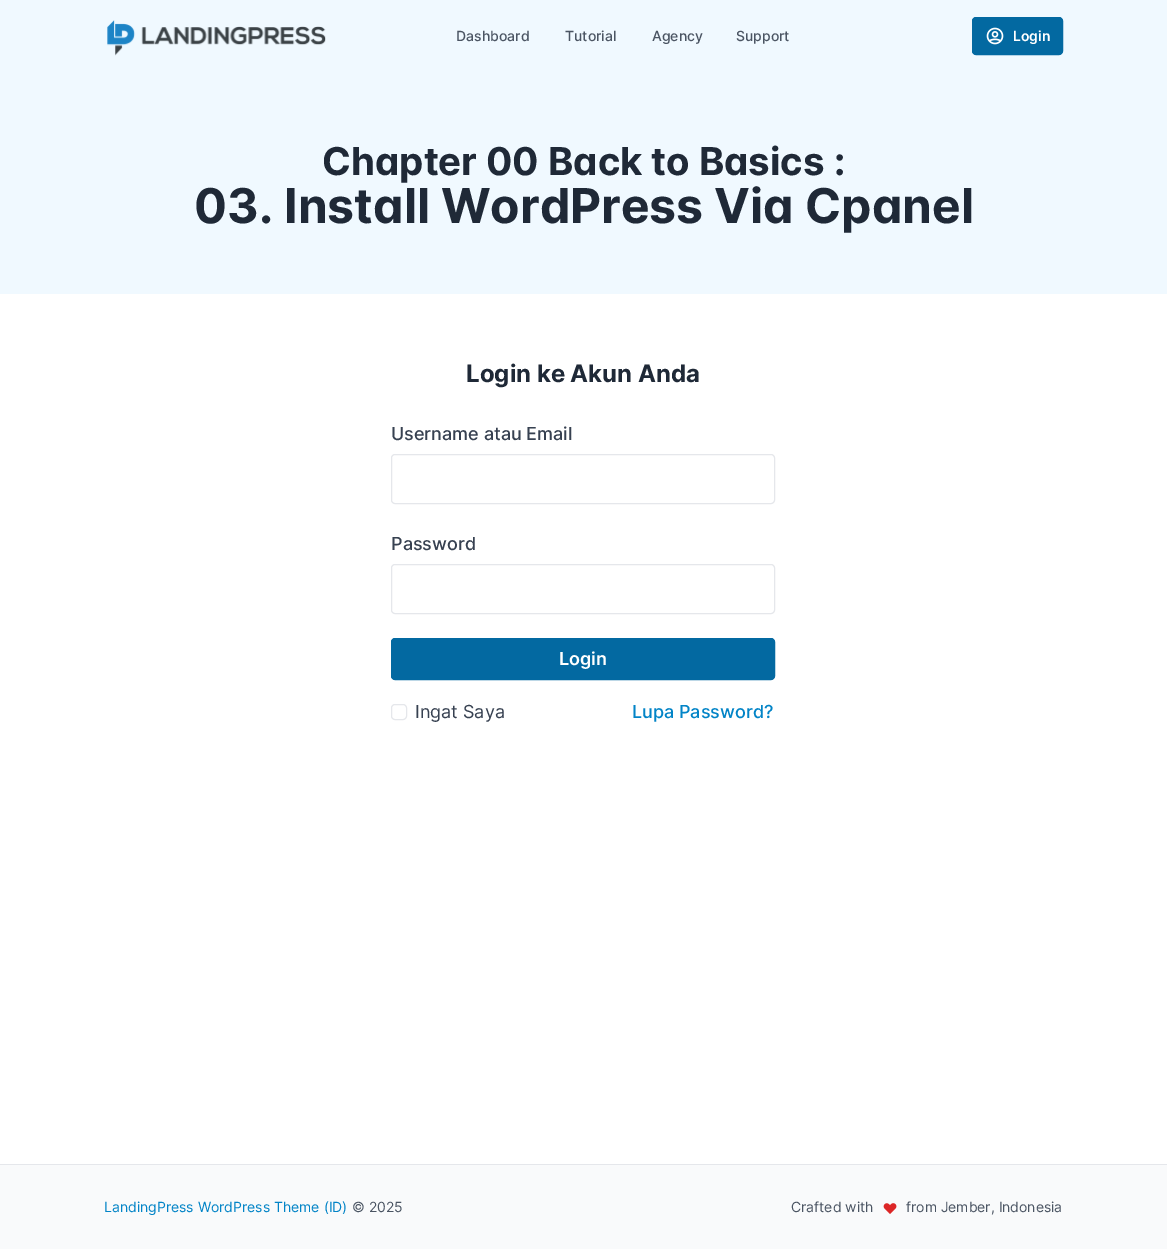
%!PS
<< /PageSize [1167 1249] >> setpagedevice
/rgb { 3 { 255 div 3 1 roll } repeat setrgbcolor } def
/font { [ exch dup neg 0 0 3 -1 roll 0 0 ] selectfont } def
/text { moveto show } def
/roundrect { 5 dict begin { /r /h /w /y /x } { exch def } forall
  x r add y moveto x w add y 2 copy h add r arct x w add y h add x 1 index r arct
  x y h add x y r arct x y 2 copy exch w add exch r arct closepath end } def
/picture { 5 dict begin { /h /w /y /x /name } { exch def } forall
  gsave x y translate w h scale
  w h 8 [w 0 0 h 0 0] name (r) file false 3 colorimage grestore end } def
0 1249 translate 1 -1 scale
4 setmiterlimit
255 255 255 rgb
0 0 1167 1249 rectfill
240 249 255 rgb
0 0 1167 294 rectfill
(img_01.rgb) 107 20 219 36 picture
3 105 161 rgb
972.5 17.5 90 37 3.5 roundrect gsave fill grestore
stroke
(img_02.rgb) 986 27 18 18 picture
229 231 235 rgb
391.5 454.5 383 49 3.5 roundrect stroke
391.5 564.5 383 49 3.5 roundrect stroke
3 105 161 rgb
391.5 638.5 383 41 3.5 roundrect gsave fill grestore
stroke
229 231 235 rgb
391.5 704.5 15 15 3.5 roundrect stroke
249 250 251 rgb
0 1165 1167 84 rectfill
229 231 235 rgb
0 1164 1167 1 rectfill
(img_03.rgb) 883 1203 14 11 picture
/Inter-Medium 14 font
75 85 99 rgb
(Dashboard) 456 41 text
(Tutorial) 565 41 text
(Agency) 652 41 text
(Support) 736 41 text
/Inter-SemiBold 14 font
255 255 255 rgb
(Login) 1013 41 text
/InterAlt-Bold 38.4 font
31 41 55 rgb
(Chapter 00 Back to Basics :) 322 175 text
/InterAlt-Bold 48 font
(03. Install WordPress Via Cpanel) 194 223 text
/Inter-Bold 24 font
(Login ke Akun Anda) 466 382 text
/Inter-Medium 18 font
55 65 81 rgb
(Username atau Email) 391 440 text
(Password) 391 550 text
/Inter-SemiBold 18 font
255 255 255 rgb
(Login) 559 665 text
/Inter-Regular 18 font
55 65 81 rgb
(Ingat Saya) 415 718 text
/Inter-Medium 18 font
2 132 199 rgb
(Lupa Password?) 632 718 text
/Inter-Regular 14 font
(LandingPress WordPress Theme \(ID\)) 104 1212 text
75 85 99 rgb
(© 2025) 352 1212 text
(Crafted with) 791 1212 text
(from Jember, Indonesia) 906 1212 text
showpage
